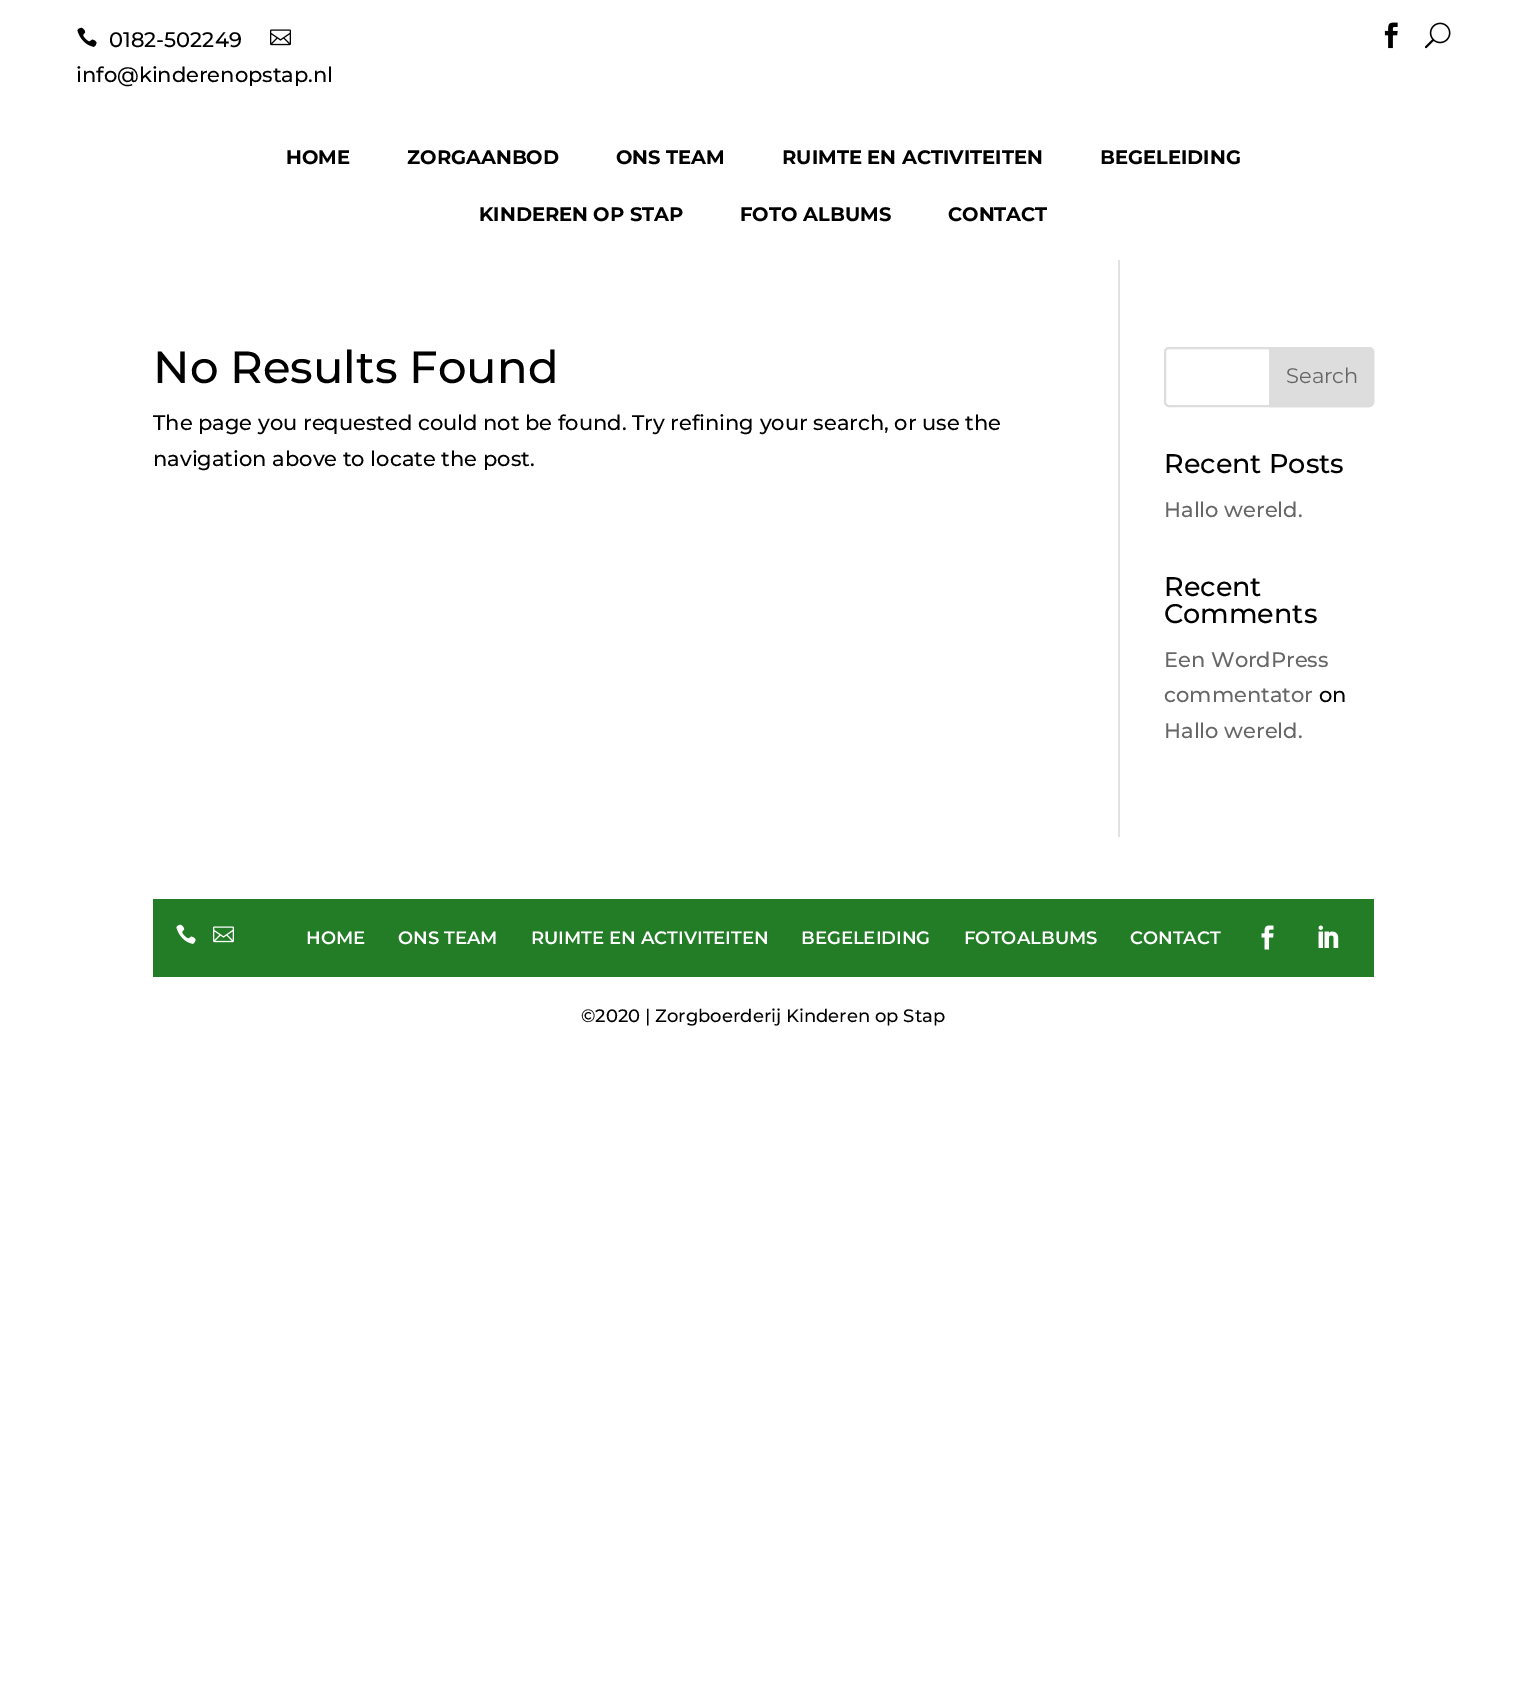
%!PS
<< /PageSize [1527 1695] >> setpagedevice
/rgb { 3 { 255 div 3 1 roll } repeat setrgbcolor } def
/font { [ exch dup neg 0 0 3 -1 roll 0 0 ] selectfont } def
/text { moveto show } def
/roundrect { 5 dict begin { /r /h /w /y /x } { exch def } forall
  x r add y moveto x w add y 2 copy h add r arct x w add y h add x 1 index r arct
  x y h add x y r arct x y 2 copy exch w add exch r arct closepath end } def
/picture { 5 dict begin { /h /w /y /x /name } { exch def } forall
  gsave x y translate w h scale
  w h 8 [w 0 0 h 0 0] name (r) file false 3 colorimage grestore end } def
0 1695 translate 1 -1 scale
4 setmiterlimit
255 255 255 rgb
0 0 1527 1695 rectfill
(img_01.rgb) 77 27 20 20 picture
(img_02.rgb) 270 29 21 17 picture
(img_03.rgb) 1384 22 14 27 picture
(img_04.rgb) 1424 22 27 27 picture
226 226 226 rgb
1118 260 2 577 rectfill
221 221 221 rgb
2 setlinewidth
1165 348 208 58 4 roundrect stroke
1270 348 moveto 99 0 rlineto 2 0 4 2 4 4 rcurveto 0 50 rlineto 0 2 -2 4 -4 4 rcurveto -99 0 rlineto closepath gsave fill grestore
stroke
35 125 38 rgb
153 899 1221 78 rectfill
(img_05.rgb) 176 924 20 20 picture
(img_06.rgb) 213 926 21 17 picture
(img_07.rgb) 1261 925 13 25 picture
(img_08.rgb) 1318 925 21 23 picture
/Montserrat-Thin 21 font
0 0 0 rgb
(0182-502249) 109 47 text
(info@kinderenopstap.nl) 76 82 text
/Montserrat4-Thin 19.5 font
(HOME) 286 164 text
(ZORGAANBOD) 407 164 text
(ONS TEAM) 616 164 text
(RUIMTE EN ACTIVITEITEN) 782 164 text
(BEGELEIDING) 1100 164 text
(KINDEREN OP STAP) 479 221 text
(FOTO ALBUMS) 740 221 text
(CONTACT) 948 221 text
/Montserrat-Thin 45 font
(No Results Found) 153 383 text
/Montserrat-Thin 21 font
(The page you requested could not be found. Try refining your search, or use the) 153 430 text
(navigation above to locate the post.) 153 466 text
/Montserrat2-Thin 21 font
102 102 102 rgb
(Search) 1286 383 text
/Montserrat-Thin 27 font
0 0 0 rgb
(Recent Posts) 1164 473 text
/Montserrat-Thin 21 font
102 102 102 rgb
(Hallo wereld.) 1164 517 text
/Montserrat-Thin 27 font
0 0 0 rgb
(Recent) 1164 596 text
(Comments) 1164 623 text
/Montserrat-Thin 21 font
102 102 102 rgb
(Een WordPress) 1164 667 text
(commentator) 1164 702 text
0 0 0 rgb
(on) 1319 702 text
102 102 102 rgb
(Hallo wereld.) 1164 738 text
/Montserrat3-Thin 18 font
255 255 255 rgb
(HOME) 306 944 text
(ONS TEAM) 398 944 text
(RUIMTE EN ACTIVITEITEN) 531 944 text
(BEGELEIDING) 801 944 text
(FOTOALBUMS) 964 944 text
(CONTACT) 1130 944 text
/Montserrat-Thin 18 font
0 0 0 rgb
(©2020 | Zorgboerderij Kinderen op Stap) 581 1022 text
showpage
